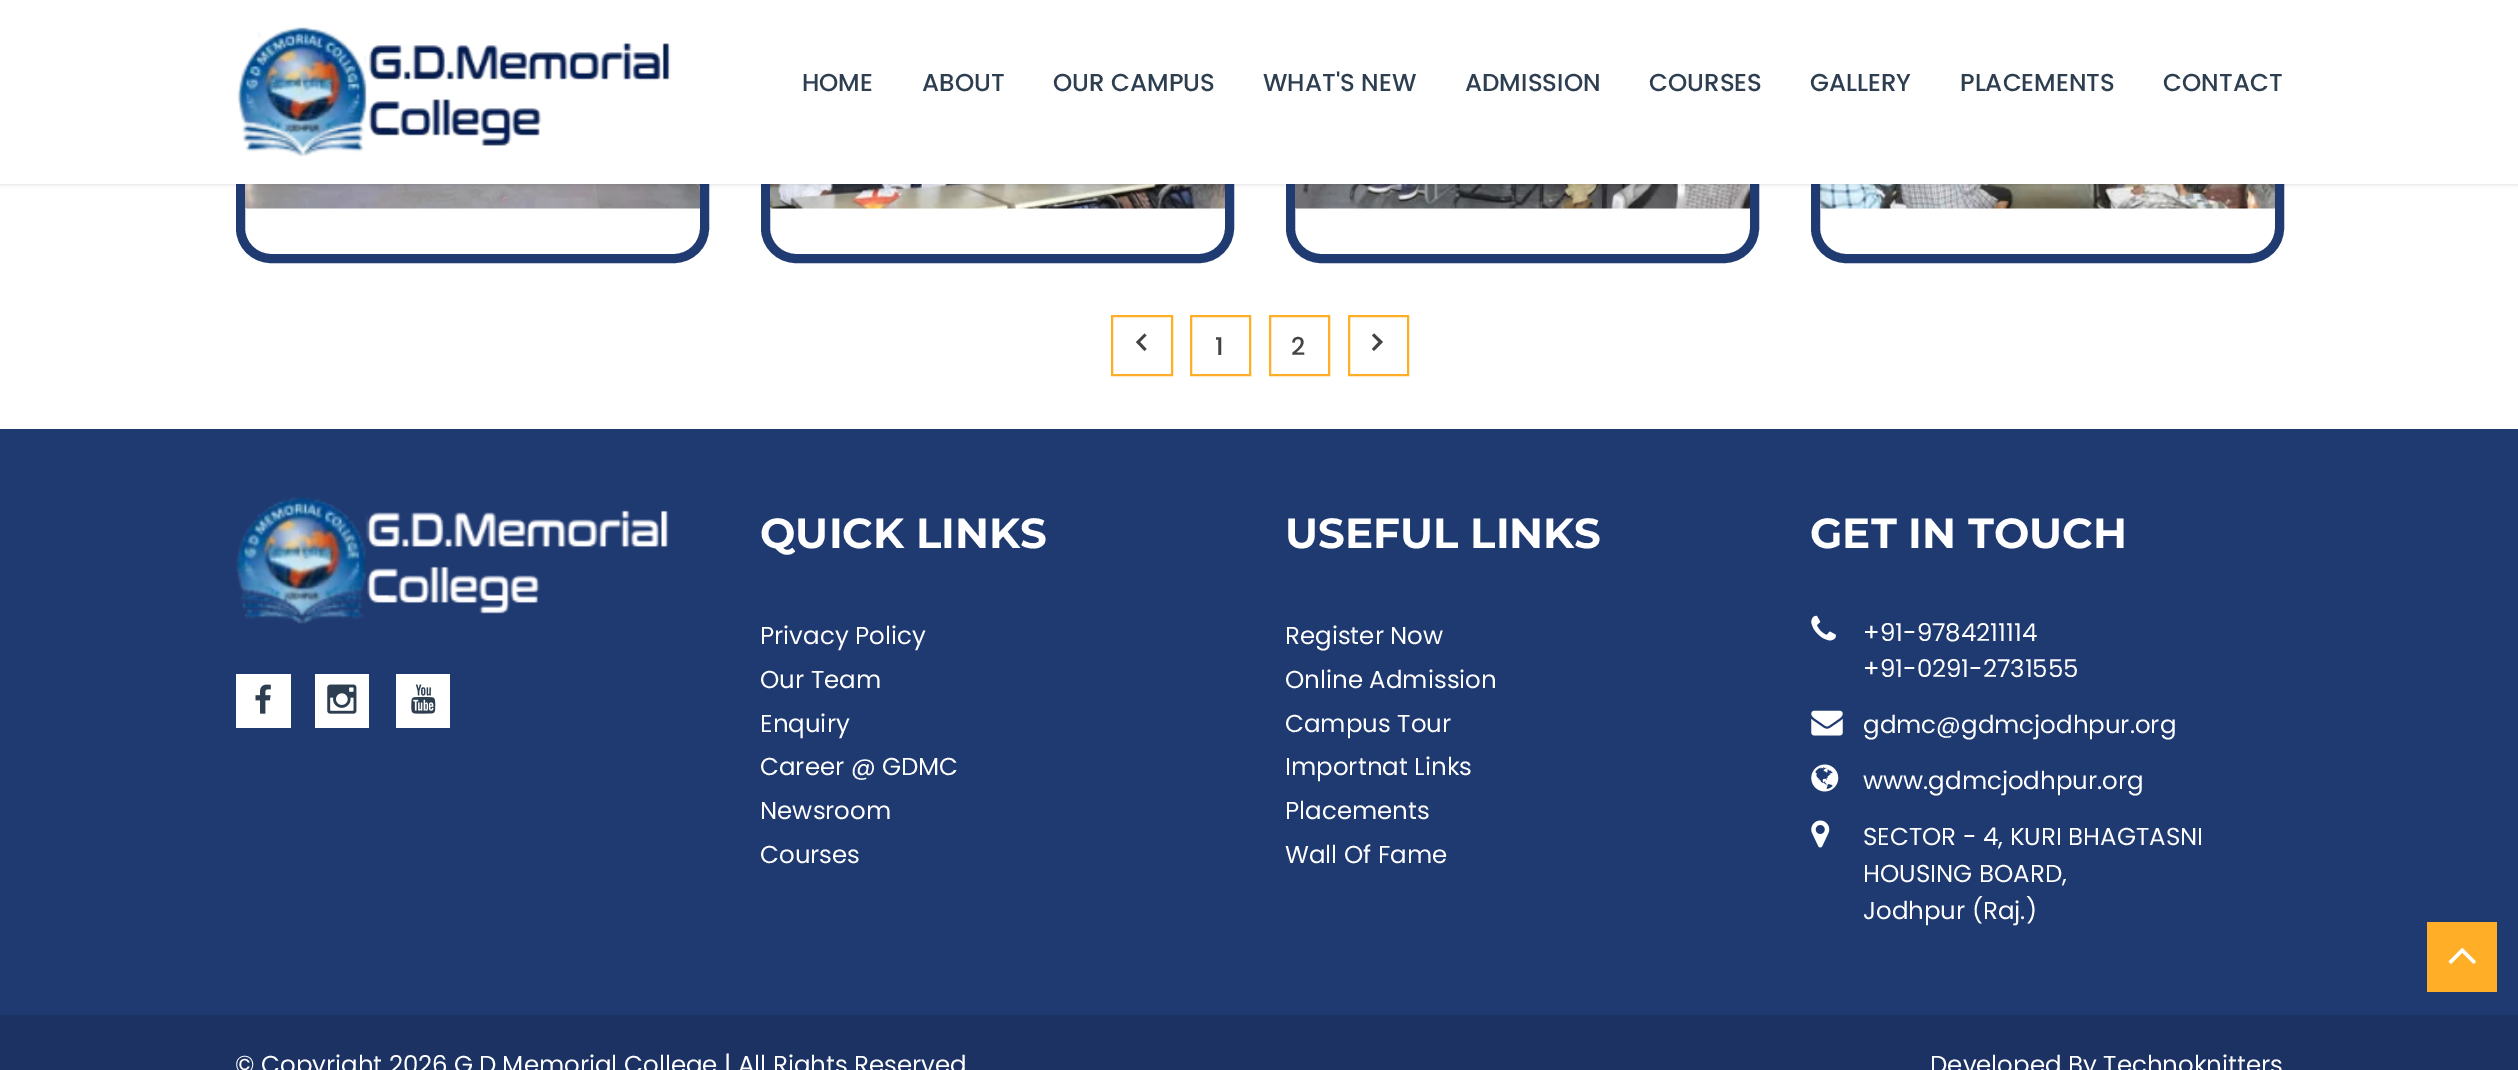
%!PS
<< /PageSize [2518 1070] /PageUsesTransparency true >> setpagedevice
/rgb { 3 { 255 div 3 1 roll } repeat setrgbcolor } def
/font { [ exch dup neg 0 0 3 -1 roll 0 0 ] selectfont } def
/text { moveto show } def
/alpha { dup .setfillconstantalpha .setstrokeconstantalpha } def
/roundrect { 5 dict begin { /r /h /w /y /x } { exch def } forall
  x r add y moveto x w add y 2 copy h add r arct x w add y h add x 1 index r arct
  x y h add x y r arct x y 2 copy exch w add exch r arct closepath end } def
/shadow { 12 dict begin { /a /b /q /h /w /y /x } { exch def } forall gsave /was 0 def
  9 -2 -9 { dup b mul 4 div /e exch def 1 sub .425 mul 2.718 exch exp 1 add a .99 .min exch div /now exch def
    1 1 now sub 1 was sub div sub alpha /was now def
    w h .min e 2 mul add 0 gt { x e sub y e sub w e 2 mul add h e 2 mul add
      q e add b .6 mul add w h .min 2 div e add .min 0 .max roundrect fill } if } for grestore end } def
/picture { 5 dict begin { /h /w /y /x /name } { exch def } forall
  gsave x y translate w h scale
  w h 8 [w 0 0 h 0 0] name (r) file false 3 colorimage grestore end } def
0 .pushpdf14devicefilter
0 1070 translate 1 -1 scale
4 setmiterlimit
255 255 255 rgb
0 0 2518 1070 rectfill
32 58 114 rgb
9 setlinewidth
240.5 -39.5 464 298 30.5 roundrect stroke
(img_02.rgb) 245 184 455 25 picture
765.5 -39.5 464 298 30.5 roundrect stroke
(img_03.rgb) 770 184 455 25 picture
1290.5 -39.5 464 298 30.5 roundrect stroke
(img_04.rgb) 1295 184 455 25 picture
1815.5 -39.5 464 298 30.5 roundrect stroke
(img_05.rgb) 1820 184 455 25 picture
0 0 0 rgb
0 0 2518 184 0 2.5 0.15 shadow
255 255 255 rgb
0 0 2518 184 rectfill
(img_01.rgb) 237 27 434 130 picture
255 174 39 rgb
2 setlinewidth
1112 316 60 59 rectstroke
67 67 67 rgb
1146.5 335.5 moveto -6.5 6.5 rlineto 6.5 7 rlineto -2 2 rlineto -8.5 -9 rlineto 8.5 -8.5 rlineto closepath fill
255 174 39 rgb
1191 316 59 59 rectstroke
1270 316 59 59 rectstroke
1349 316 59 59 rectstroke
67 67 67 rgb
1374 333.5 moveto 9 8.5 rlineto -9 9 rlineto -2 -2 rlineto 6.5 -7 rlineto -6.5 -6.5 rlineto closepath fill
31 57 113 rgb
0 429 2518 586 rectfill
(img_06.rgb) 236 497 433 127 picture
255 255 255 rgb
236 674 55 54 rectfill
(img_07.rgb) 255 684 16 30 picture
315 674 54 54 rectfill
(img_08.rgb) 327 684 30 30 picture
396 674 54 54 rectfill
(img_09.rgb) 411 684 25 30 picture
(img_10.rgb) 1811 615 25 26 picture
(img_11.rgb) 1811 710 32 26 picture
(img_12.rgb) 1811 764 28 28 picture
(img_13.rgb) 1811 820 19 28 picture
28 50 99 rgb
0 1015 2518 55 rectfill
255 174 39 rgb
2427 922 70 70 rectfill
(img_14.rgb) 2448 948 28 16 picture
/Poppins-Medium 24.5 font
45 62 80 rgb
(HOME) 802 91 text
(ABOUT) 922 91 text
(OUR CAMPUS) 1053 91 text
(WHAT'S NEW) 1263 91 text
(ADMISSION) 1465 91 text
(COURSES) 1649 91 text
(GALLERY) 1810 91 text
(PLACEMENTS) 1960 91 text
(CONTACT) 2163 91 text
67 67 67 rgb
(1) 1215 355 text
(2) 1291 355 text
/Montserrat-Bold 42 font
255 255 255 rgb
(QUICK LINKS) 760 548 text
/Poppins-Regular 24.5 font
(Privacy Policy) 760 644 text
(Our Team) 760 688 text
(Enquiry) 760 732 text
(Career @ GDMC) 760 775 text
(Newsroom) 760 819 text
(Courses) 760 863 text
/Montserrat-Bold 42 font
(USEFUL LINKS) 1285 548 text
/Poppins-Regular 24.5 font
(Register Now) 1285 644 text
(Online Admission) 1285 688 text
(Campus Tour) 1285 732 text
(Importnat Links) 1285 775 text
(Placements) 1285 819 text
(Wall Of Fame) 1285 863 text
/Montserrat-Bold 42 font
(GET IN TOUCH) 1810 548 text
/Poppins-Regular 24.5 font
(+91-9784211114) 1863 641 text
(+91-0291-2731555) 1863 677 text
(gdmc@gdmcjodhpur.org) 1863 733 text
(www.gdmcjodhpur.org) 1863 789 text
(SECTOR - 4, KURI BHAGTASNI) 1863 845 text
(HOUSING BOARD,) 1863 882 text
(Jodhpur \(Raj.\)) 1863 919 text
(© Copyright 2026 G.D Memorial College | All Rights Reserved) 235 1073 text
(Developed By Technoknitters) 1930 1073 text
.poppdf14devicefilter showpage
